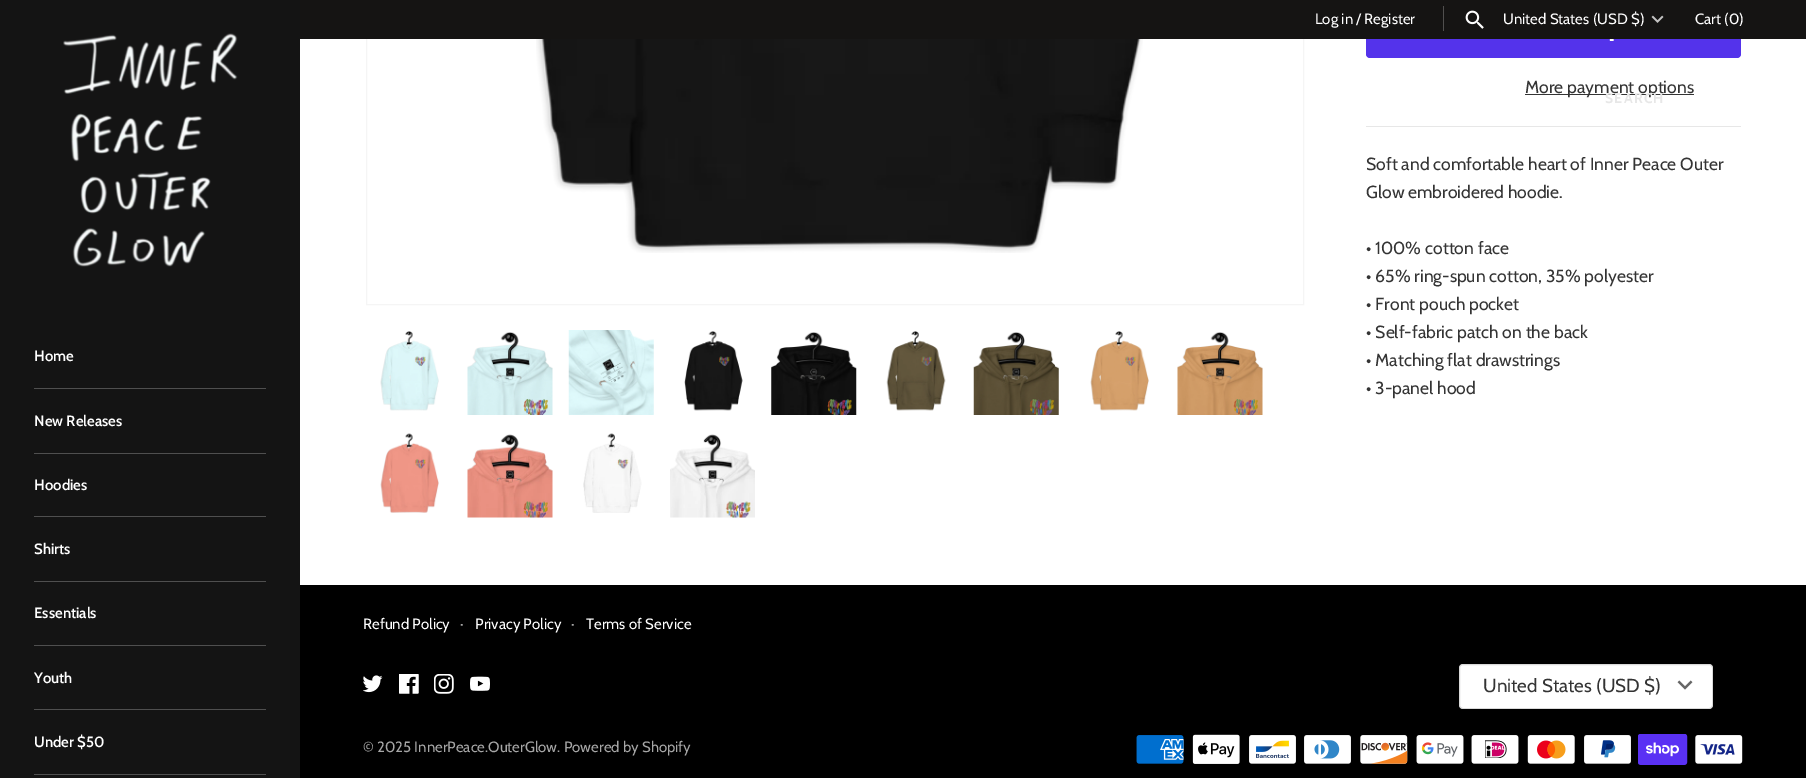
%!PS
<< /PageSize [1806 778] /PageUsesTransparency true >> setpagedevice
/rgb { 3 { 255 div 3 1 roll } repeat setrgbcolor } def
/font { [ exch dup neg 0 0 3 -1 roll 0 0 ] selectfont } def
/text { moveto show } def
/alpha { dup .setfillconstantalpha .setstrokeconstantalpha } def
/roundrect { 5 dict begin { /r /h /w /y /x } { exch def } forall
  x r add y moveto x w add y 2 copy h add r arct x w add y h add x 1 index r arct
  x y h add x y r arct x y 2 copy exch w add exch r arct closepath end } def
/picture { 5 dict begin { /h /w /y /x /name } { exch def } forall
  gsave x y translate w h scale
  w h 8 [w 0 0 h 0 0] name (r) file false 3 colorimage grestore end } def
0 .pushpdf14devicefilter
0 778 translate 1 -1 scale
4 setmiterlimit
255 255 255 rgb
0 0 1806 778 rectfill
245 245 245 rgb
366.5 -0.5 937 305 rectstroke
84 51 235 rgb
1366 -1 375 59 4 roundrect fill
21 20 19 rgb
300 0 1506 39 rectfill
80 79 78 rgb
1443 6 1 25 rectfill
(img_01.rgb) 1465 10 19 19 picture
(img_02.rgb) 1651 15 13 8 picture
20 20 20 rgb
0 0 300 778 rectfill
(img_03.rgb) 63 33 175 234 picture
79 79 79 rgb
34 388 232 1 rectfill
34 453 232 1 rectfill
34 516 232 1 rectfill
34 581 232 1 rectfill
34 645 232 1 rectfill
34 709 232 1 rectfill
34 774 232 1 rectfill
(img_04.rgb) 536 39 607 214 picture
(img_05.rgb) 380 331 59 80 picture
(img_06.rgb) 467 332 86 83 picture
(img_07.rgb) 568 330 86 85 picture
(img_08.rgb) 684 331 59 80 picture
(img_09.rgb) 771 332 86 83 picture
(img_10.rgb) 886 331 60 80 picture
(img_11.rgb) 973 332 86 83 picture
(img_12.rgb) 1090 331 59 80 picture
(img_13.rgb) 1177 332 86 83 picture
(img_14.rgb) 380 433 59 80 picture
(img_15.rgb) 467 434 86 84 picture
(img_16.rgb) 583 433 59 80 picture
(img_17.rgb) 670 434 85 84 picture
(img_18.rgb) 1609 39 5 2 picture
52 52 52 rgb
1525 94 169 1 rectfill
231 231 231 rgb
1366 126 375 1 rectfill
0 0 0 rgb
300 585 1506 193 rectfill
(img_19.rgb) 363 675 20 18 picture
(img_20.rgb) 399 674 20 20 picture
(img_21.rgb) 434 674 20 20 picture
(img_22.rgb) 470 676 20 15 picture
255 255 255 rgb
1459 664 254 45 4 roundrect fill
0.15 alpha
0 0 0 rgb
1459.5 664.5 253 44 3.5 roundrect stroke
1 alpha
(img_23.rgb) 1677 680 16 10 picture
(img_24.rgb) 1136 735 48 29 picture
(img_25.rgb) 1192 734 48 30 picture
(img_26.rgb) 1249 735 47 29 picture
(img_27.rgb) 1304 735 47 29 picture
(img_28.rgb) 1360 735 48 29 picture
(img_29.rgb) 1416 735 48 29 picture
(img_30.rgb) 1471 735 48 29 picture
(img_31.rgb) 1527 735 48 29 picture
(img_32.rgb) 1584 735 47 29 picture
(img_33.rgb) 1638 734 50 31 picture
(img_34.rgb) 1695 735 48 29 picture
/Cabin-Regular 14.9 font
255 255 255 rgb
(Log in / Register) 1315 24 text
(United States \(USD $\)) 1503 24 text
(Cart \(0\)) 1695 24 text
/Cabin-SemiBold 14.9 font
(Home) 34 361 text
(New Releases) 34 426 text
(Hoodies) 34 490 text
(Shirts) 34 554 text
(Essentials) 34 618 text
(Youth) 34 683 text
(Under $50) 34 747 text
/Cabin-Regular 17.5 font
52 52 52 rgb
(More payment options) 1525 93 text
/Cabin-Bold 14 font
231 231 231 rgb
1605 103 moveto 1.25 0 (SEARCH) ashow
/Cabin-Regular 17.5 font
52 52 52 rgb
(Soft and comfortable heart of Inner Peace Outer) 1366 170 text
(Glow embroidered hoodie.) 1366 198 text
(• 100% cotton face) 1366 254 text
(• 65% ring-spun cotton, 35% polyester) 1366 282 text
(• Front pouch pocket) 1366 310 text
(• Self-fabric patch on the back) 1366 338 text
(• Matching flat drawstrings) 1366 366 text
(• 3-panel hood) 1366 394 text
/Cabin-Regular 14.9 font
255 255 255 rgb
(Refund Policy) 363 629 text
166 166 166 rgb
(·) 460 629 text
255 255 255 rgb
(Privacy Policy) 475 629 text
166 166 166 rgb
(·) 571 629 text
255 255 255 rgb
(Terms of Service) 586 629 text
/Cabin-Regular 18.75 font
52 52 52 rgb
(United States \(USD $\)) 1483 692 text
/Cabin-Regular 14.9 font
166 166 166 rgb
(© 2025 InnerPeace.OuterGlow. Powered by Shopify) 363 752 text
.poppdf14devicefilter showpage
